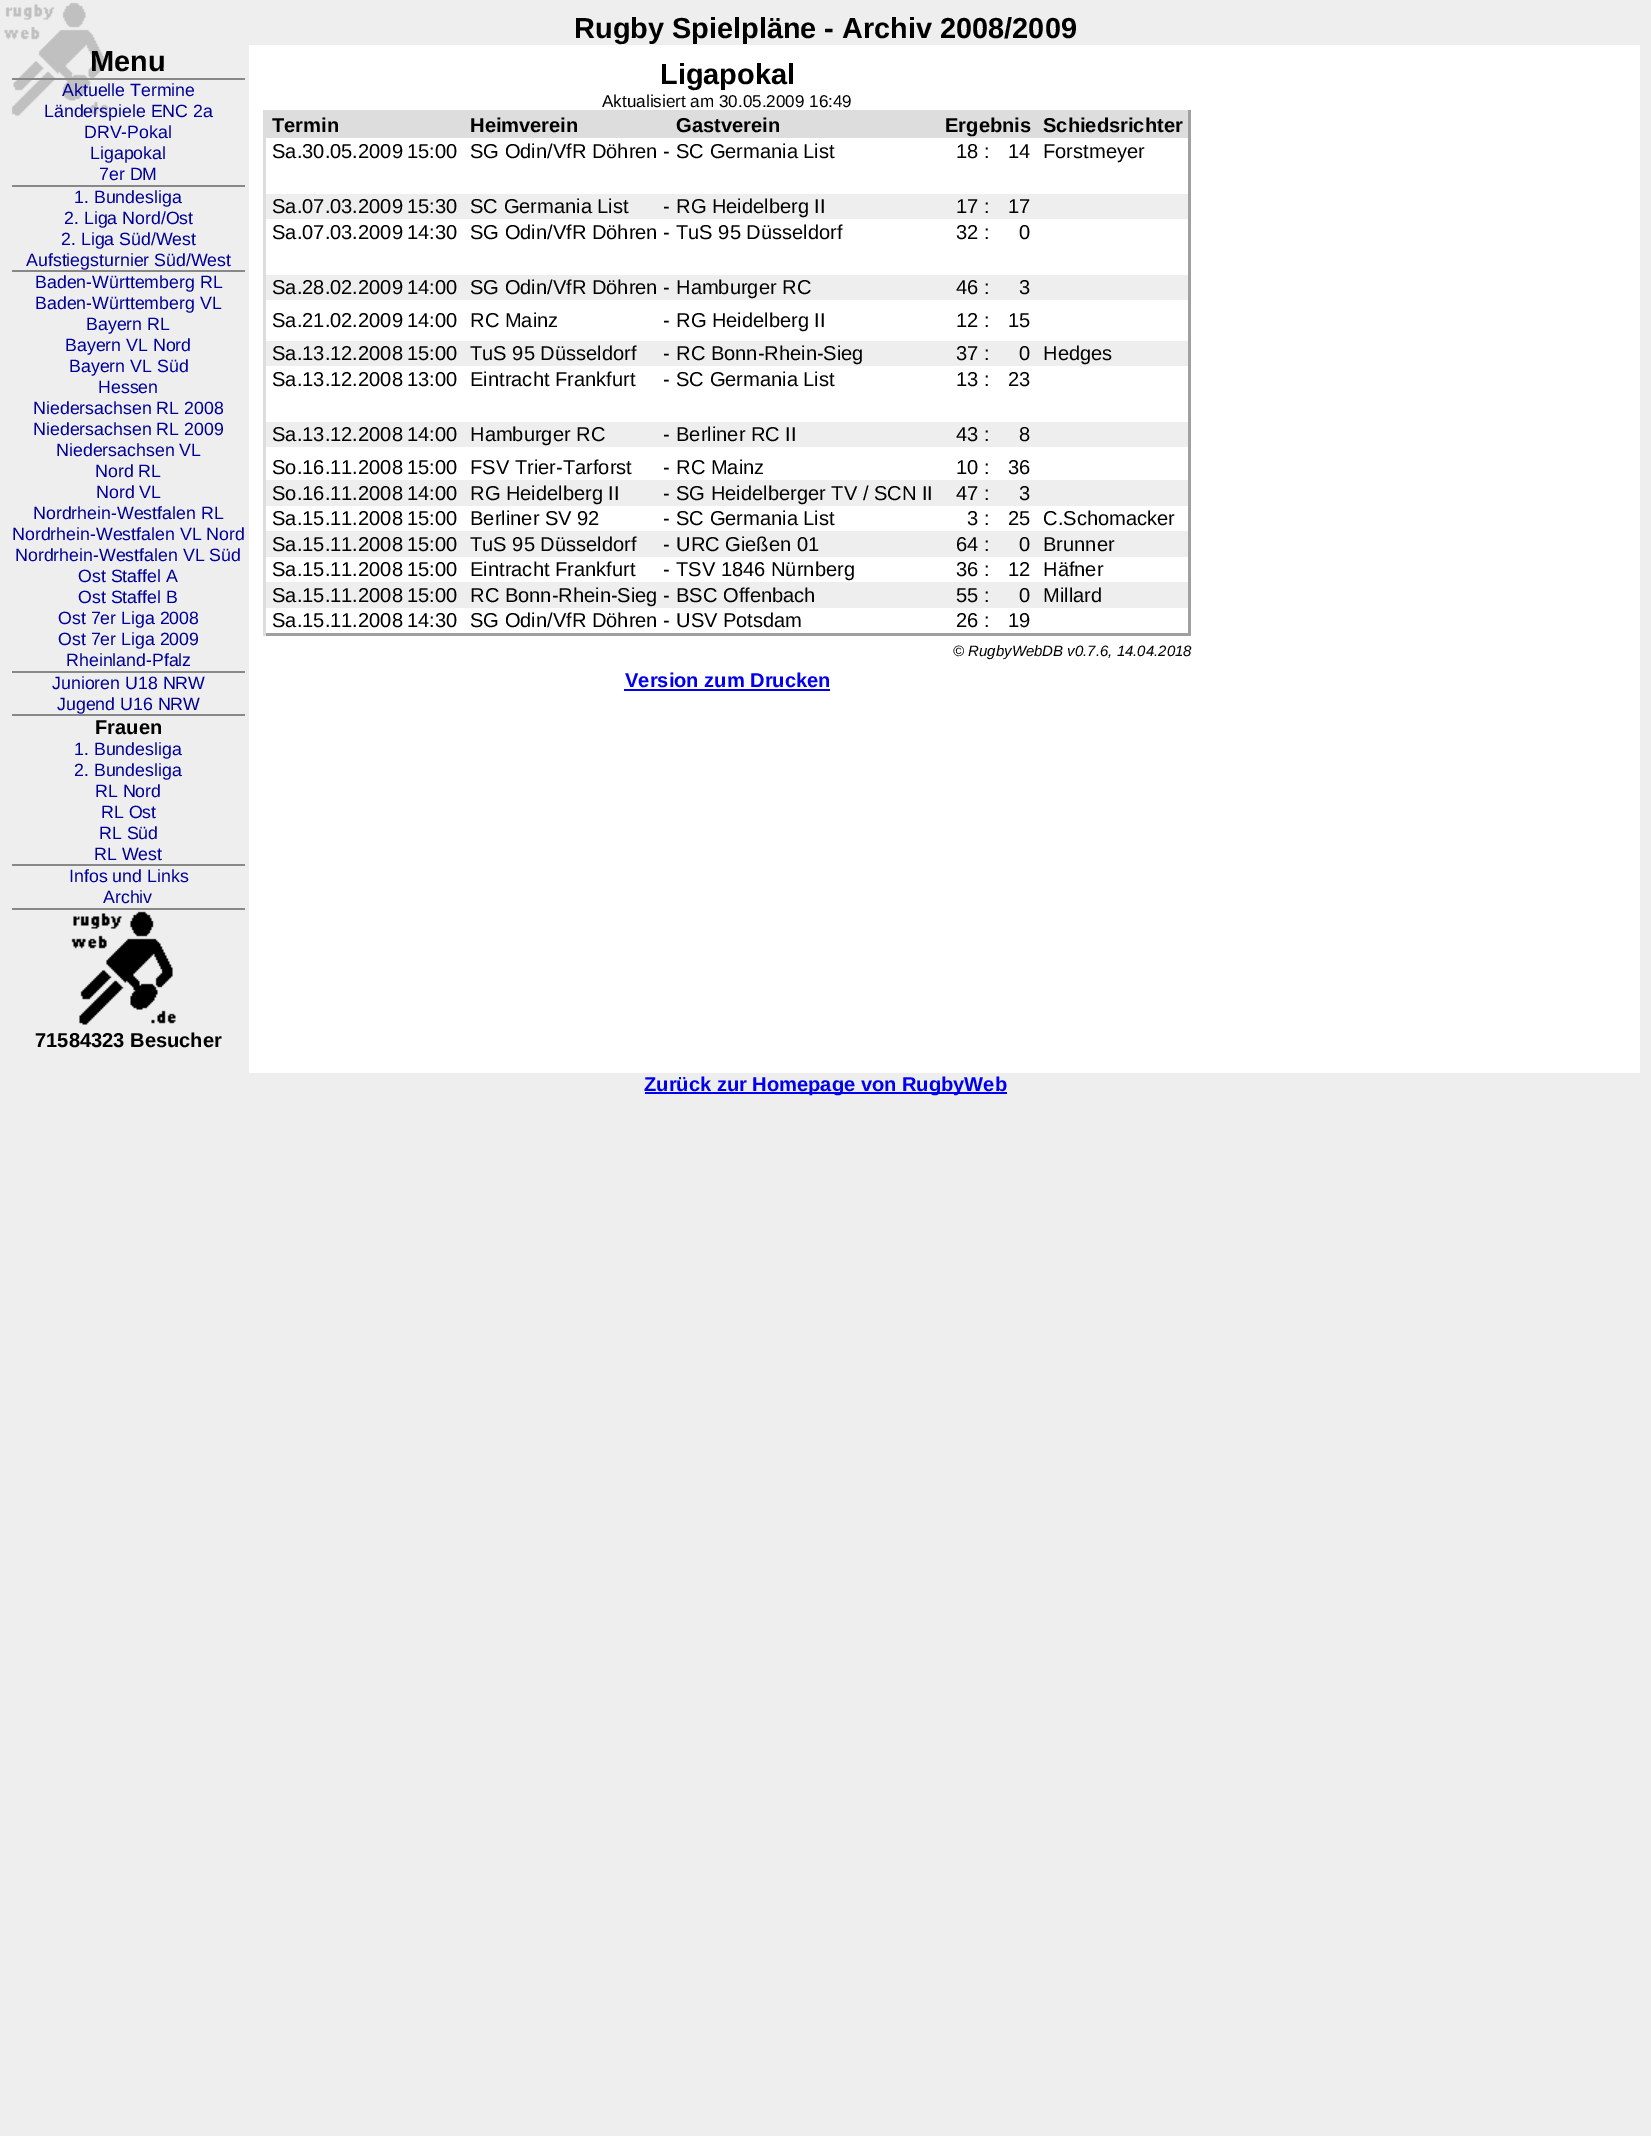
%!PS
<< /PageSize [1651 2136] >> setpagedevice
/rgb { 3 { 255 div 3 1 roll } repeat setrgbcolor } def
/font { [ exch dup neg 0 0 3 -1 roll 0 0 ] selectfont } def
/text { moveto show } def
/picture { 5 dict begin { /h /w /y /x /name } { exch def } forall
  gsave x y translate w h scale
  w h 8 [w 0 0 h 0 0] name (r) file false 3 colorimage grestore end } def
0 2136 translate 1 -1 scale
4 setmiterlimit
238 238 238 rgb
0 0 1651 2136 rectfill
(img_01.rgb) 4 2 105 114 picture
136 136 136 rgb
12 78 233 2 rectfill
12 185 233 2 rectfill
12 270 233 2 rectfill
12 671 233 2 rectfill
12 714 233 2 rectfill
12 864 233 2 rectfill
12 908 233 2 rectfill
(img_02.rgb) 71 911 105 114 picture
255 255 255 rgb
249 45 1391 1028 rectfill
221 221 221 rgb
663 111 8 27 rectfill
263 110 928 3 rectfill
160 160 160 rgb
1188 110 3 526 rectfill
263 633 928 3 rectfill
221 221 221 rgb
263 110 3 526 rectfill
266 113 397 25 rectfill
671 113 517 25 rectfill
238 238 238 rgb
266 194 922 25 rectfill
266 275 922 25 rectfill
266 341 922 25 rectfill
266 422 922 25 rectfill
266 480 922 26 rectfill
266 531 922 26 rectfill
266 582 922 26 rectfill
0 0 238 rgb
624 689 206 2 rectfill
645 1092 362 2 rectfill
/LiberationSans-Bold 28.9 font
0 0 0 rgb
(Rugby Spielpläne - Archiv 2008/2009) 574 38 text
(Menu) 90 71 text
/LiberationSans-Regular 17.75 font
0 0 153 rgb
(Aktuelle Termine) 62 96 text
(Länderspiele ENC 2a) 44 117 text
(DRV-Pokal) 84 138 text
(Ligapokal) 90 159 text
(7er DM) 99 180 text
(1. Bundesliga) 74 203 text
(2. Liga Nord/Ost) 64 224 text
(2. Liga Süd/West) 61 245 text
(Aufstiegsturnier Süd/West) 26 266 text
(Baden-Württemberg RL) 35 288 text
(Baden-Württemberg VL) 35 309 text
(Bayern RL) 86 330 text
(Bayern VL Nord) 65 351 text
(Bayern VL Süd) 69 372 text
(Hessen) 98 393 text
(Niedersachsen RL 2008) 33 414 text
(Niedersachsen RL 2009) 33 435 text
(Niedersachsen VL) 56 456 text
(Nord RL) 95 477 text
(Nord VL) 96 498 text
(Nordrhein-Westfalen RL) 33 519 text
(Nordrhein-Westfalen VL Nord) 12 540 text
(Nordrhein-Westfalen VL Süd) 15 561 text
(Ost Staffel A) 78 582 text
(Ost Staffel B) 78 603 text
(Ost 7er Liga 2008) 58 624 text
(Ost 7er Liga 2009) 58 645 text
(Rheinland-Pfalz) 66 666 text
(Junioren U18 NRW) 52 689 text
(Jugend U16 NRW) 57 710 text
/LiberationSans-Bold 20.1 font
0 0 0 rgb
(Frauen) 95 734 text
/LiberationSans-Regular 17.75 font
0 0 153 rgb
(1. Bundesliga) 74 755 text
(2. Bundesliga) 74 776 text
(RL Nord) 95 797 text
(RL Ost) 101 818 text
(RL Süd) 99 839 text
(RL West) 94 860 text
(Infos und Links) 69 882 text
(Archiv) 103 903 text
/LiberationSans-Bold 20.1 font
0 0 0 rgb
(71584323 Besucher) 35 1047 text
/LiberationSans-Bold 28.9 font
(Ligapokal) 660 84 text
/LiberationSans-Regular 17.1 font
(Aktualisiert am 30.05.2009 16:49) 602 107 text
/LiberationSans-Bold 20.1 font
(Termin) 272 132 text
(Heimverein) 470 132 text
(Gastverein) 676 132 text
(Ergebnis) 945 132 text
(Schiedsrichter) 1043 132 text
/LiberationSans-Regular 20.1 font
(Sa.30.05.2009) 272 158 text
(15:00) 407 158 text
(SG Odin/VfR Döhren) 470 158 text
(-) 663 158 text
(SC Germania List) 676 158 text
(18) 956 158 text
(:) 984 158 text
(14) 1008 158 text
(Forstmeyer) 1043 158 text
(Sa.07.03.2009) 272 213 text
(15:30) 407 213 text
(SC Germania List) 470 213 text
(-) 663 213 text
(RG Heidelberg II) 676 213 text
(17) 956 213 text
(:) 984 213 text
(17) 1008 213 text
(Sa.07.03.2009) 272 239 text
(14:30) 407 239 text
(SG Odin/VfR Döhren) 470 239 text
(-) 663 239 text
(TuS 95 Düsseldorf) 676 239 text
(32) 956 239 text
(:) 984 239 text
(0) 1019 239 text
(Sa.28.02.2009) 272 294 text
(14:00) 407 294 text
(SG Odin/VfR Döhren) 470 294 text
(-) 663 294 text
(Hamburger RC) 676 294 text
(46) 956 294 text
(:) 984 294 text
(3) 1019 294 text
(Sa.21.02.2009) 272 327 text
(14:00) 407 327 text
(RC Mainz) 470 327 text
(-) 663 327 text
(RG Heidelberg II) 676 327 text
(12) 956 327 text
(:) 984 327 text
(15) 1008 327 text
(Sa.13.12.2008) 272 360 text
(15:00) 407 360 text
(TuS 95 Düsseldorf) 470 360 text
(-) 663 360 text
(RC Bonn-Rhein-Sieg) 676 360 text
(37) 956 360 text
(:) 984 360 text
(0) 1019 360 text
(Hedges) 1043 360 text
(Sa.13.12.2008) 272 386 text
(13:00) 407 386 text
(Eintracht Frankfurt) 470 386 text
(-) 663 386 text
(SC Germania List) 676 386 text
(13) 956 386 text
(:) 984 386 text
(23) 1008 386 text
(Sa.13.12.2008) 272 441 text
(14:00) 407 441 text
(Hamburger RC) 470 441 text
(-) 663 441 text
(Berliner RC II) 676 441 text
(43) 956 441 text
(:) 984 441 text
(8) 1019 441 text
(So.16.11.2008) 272 474 text
(15:00) 407 474 text
(FSV Trier-Tarforst) 470 474 text
(-) 663 474 text
(RC Mainz) 676 474 text
(10) 956 474 text
(:) 984 474 text
(36) 1008 474 text
(So.16.11.2008) 272 500 text
(14:00) 407 500 text
(RG Heidelberg II) 470 500 text
(-) 663 500 text
(SG Heidelberger TV / SCN II) 676 500 text
(47) 956 500 text
(:) 984 500 text
(3) 1019 500 text
(Sa.15.11.2008) 272 525 text
(15:00) 407 525 text
(Berliner SV 92) 470 525 text
(-) 663 525 text
(SC Germania List) 676 525 text
(3) 967 525 text
(:) 984 525 text
(25) 1008 525 text
(C.Schomacker) 1043 525 text
(Sa.15.11.2008) 272 551 text
(15:00) 407 551 text
(TuS 95 Düsseldorf) 470 551 text
(-) 663 551 text
(URC Gießen 01) 676 551 text
(64) 956 551 text
(:) 984 551 text
(0) 1019 551 text
(Brunner) 1043 551 text
(Sa.15.11.2008) 272 576 text
(15:00) 407 576 text
(Eintracht Frankfurt) 470 576 text
(-) 663 576 text
(TSV 1846 Nürnberg) 676 576 text
(36) 956 576 text
(:) 984 576 text
(12) 1008 576 text
(Häfner) 1043 576 text
(Sa.15.11.2008) 272 602 text
(15:00) 407 602 text
(RC Bonn-Rhein-Sieg -) 470 602 text
(BSC Offenbach) 676 602 text
(55) 956 602 text
(:) 984 602 text
(0) 1019 602 text
(Millard) 1043 602 text
(Sa.15.11.2008) 272 627 text
(14:30) 407 627 text
(SG Odin/VfR Döhren) 470 627 text
(-) 663 627 text
(USV Potsdam) 676 627 text
(26) 956 627 text
(:) 984 627 text
(19) 1008 627 text
/LiberationSans-Italic 15 font
(© RugbyWebDB v0.7.6, 14.04.2018) 953 656 text
/LiberationSans-Bold 20.1 font
0 0 238 rgb
(Version zum Drucken) 625 687 text
(Zurück zur Homepage von RugbyWeb) 644 1091 text
showpage
